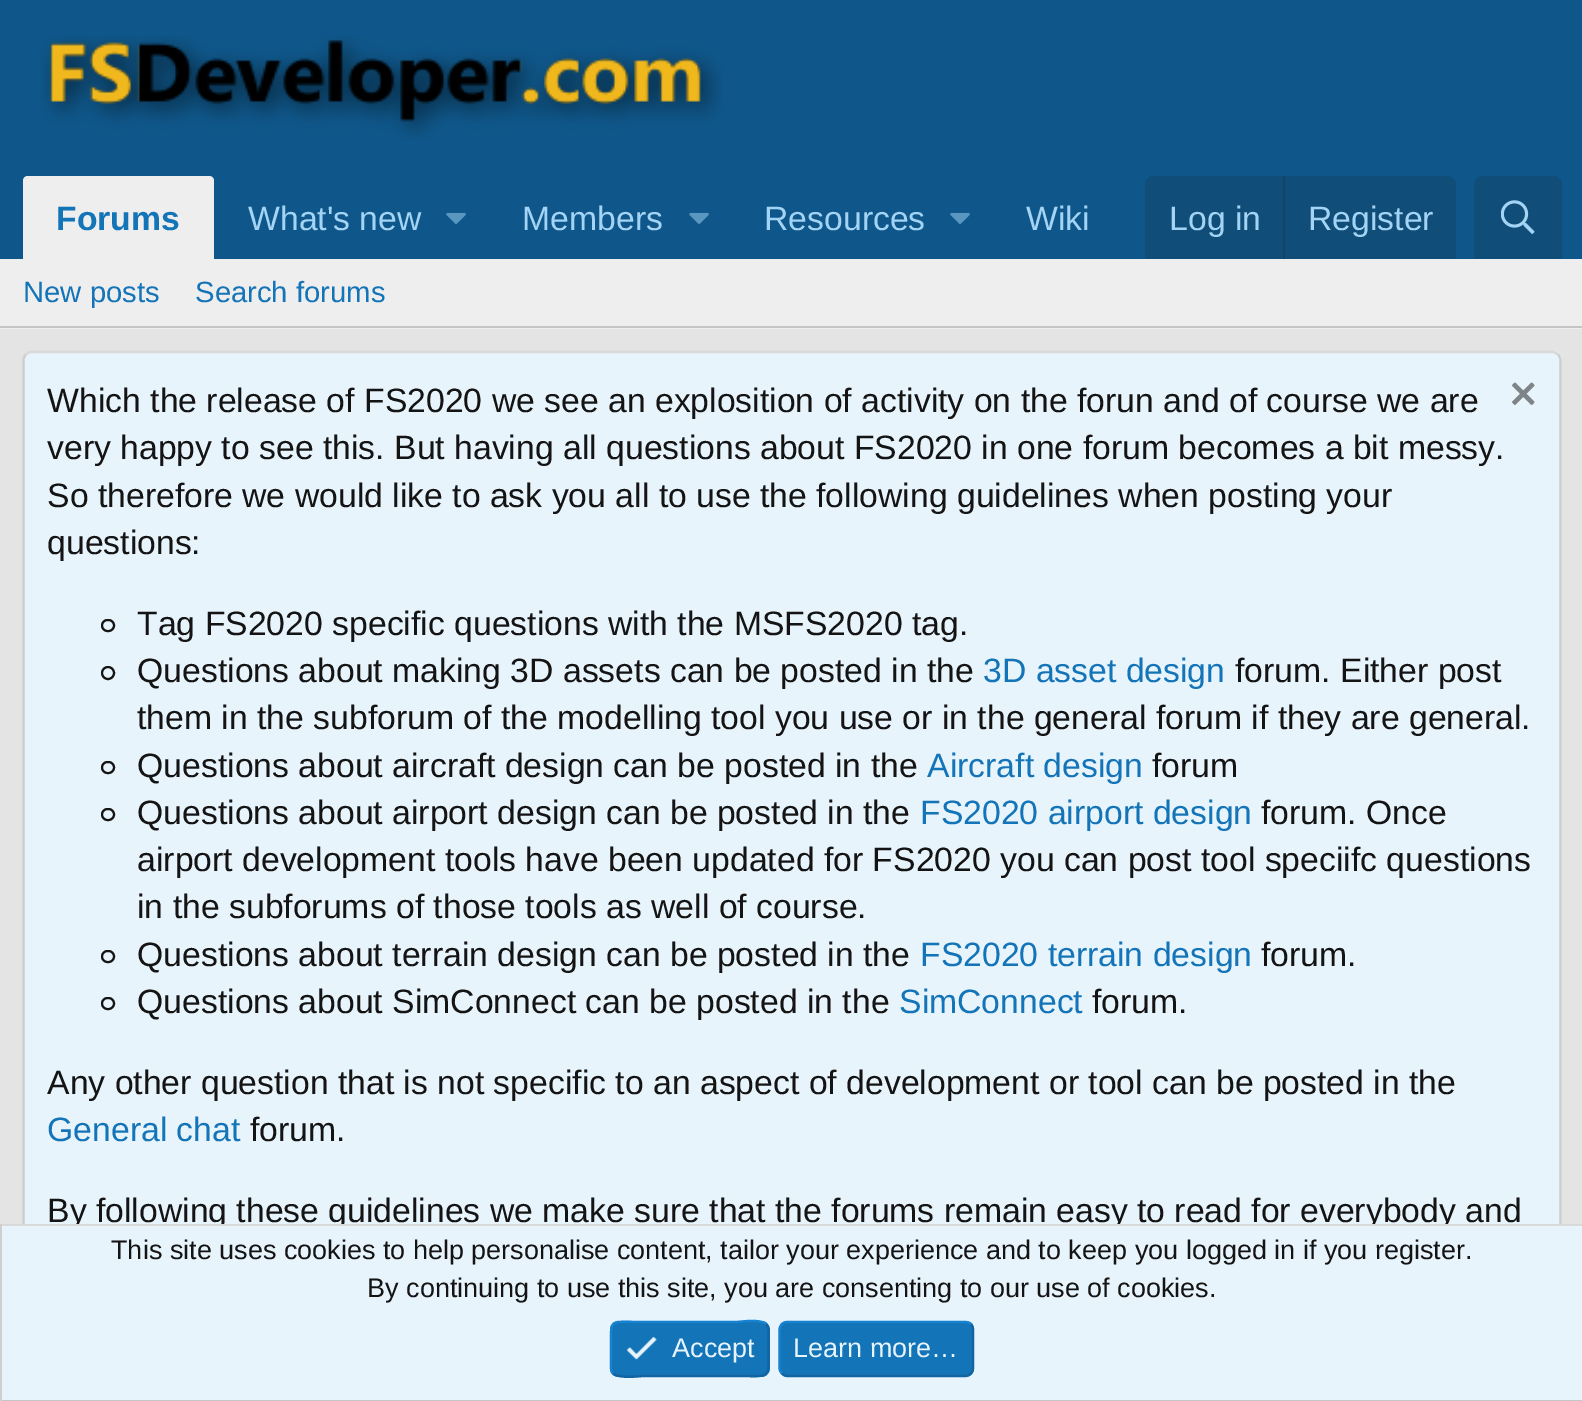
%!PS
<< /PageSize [1582 1401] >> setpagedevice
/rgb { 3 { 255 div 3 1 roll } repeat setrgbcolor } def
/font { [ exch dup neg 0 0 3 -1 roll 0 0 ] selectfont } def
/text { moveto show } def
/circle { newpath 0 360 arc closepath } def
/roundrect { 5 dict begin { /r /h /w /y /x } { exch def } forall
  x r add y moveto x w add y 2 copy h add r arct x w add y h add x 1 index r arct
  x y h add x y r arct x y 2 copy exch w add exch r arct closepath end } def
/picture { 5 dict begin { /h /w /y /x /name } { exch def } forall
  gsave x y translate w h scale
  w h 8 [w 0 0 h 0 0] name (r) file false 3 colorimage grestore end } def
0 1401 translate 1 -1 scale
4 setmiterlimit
228 228 228 rgb
0 0 1582 1401 rectfill
15 87 138 rgb
0 0 1582 259 rectfill
(img_01.rgb) 41 35 682 105 picture
238 238 238 rgb
28 176 moveto 181 0 rlineto 3 0 5 2 5 5 rcurveto 0 78 rlineto -191 0 rlineto 0 -78 rlineto 0 -3 2 -5 5 -5 rcurveto closepath fill
(img_02.rgb) 446 212 20 12 picture
(img_02.rgb) 689 212 20 12 picture
(img_02.rgb) 950 212 20 12 picture
16 77 120 rgb
1154 176 moveto 293 0 rlineto 5 0 9 4 9 9 rcurveto 0 74 rlineto -311 0 rlineto 0 -74 rlineto 0 -5 4 -9 9 -9 rcurveto closepath fill
17 68 105 rgb
1283 176 2 83 rectfill
16 77 120 rgb
1483 176 moveto 70 0 rlineto 5 0 9 4 9 9 rcurveto 0 74 rlineto -88 0 rlineto 0 -74 rlineto 0 -5 4 -9 9 -9 rcurveto closepath fill
(img_03.rgb) 1501 200 34 34 picture
238 238 238 rgb
0 259 1582 70 rectfill
197 197 197 rgb
0 326 1582 2 rectfill
232 244 252 rgb
23 351 1539 988 9 roundrect fill
217 217 217 rgb
2.2 setlinewidth
26 354.5 moveto 1.5 -1.5 3.5 -2.5 5.5 -2.5 rcurveto 1521 0 rlineto 2 0 4 1 5.5 2.5 rcurveto stroke
207 207 207 rgb
1558 354.5 moveto 1.5 1.5 2.5 3.5 2.5 5.5 rcurveto 0 970 rlineto 0 2 -1 4 -2.5 5.5 rcurveto stroke
26 1335.5 moveto -1.5 -1.5 -2.5 -3.5 -2.5 -5.5 rcurveto 0 -970 rlineto 0 -2 1 -4 2.5 -5.5 rcurveto stroke
(img_04.rgb) 1512 382 23 23 picture
20 20 20 rgb
2 setlinewidth
102 620 12 11 5.5 roundrect stroke
108 673 6 circle stroke
102 762 12 11 5.5 roundrect stroke
102 809 12 11 5.5 roundrect stroke
102 951 12 11 5.5 roundrect stroke
102 998 12 11 5.5 roundrect stroke
197 197 197 rgb
0 1400 1582 1 rectfill
/LiberationSans-Bold 33.75 font
20 116 184 rgb
(Forums) 56 230 text
/LiberationSans-Regular 33.75 font
163 212 245 rgb
(What's new) 248 230 text
(Members) 522 230 text
(Resources) 764 230 text
(Wiki) 1026 230 text
(Log in) 1169 230 text
(Register) 1308 230 text
/LiberationSans-Regular 29.25 font
20 116 184 rgb
(New posts) 23 302 text
(Search forums) 195 302 text
/LiberationSans-Regular 33.75 font
20 20 20 rgb
(Which the release of FS2020 we see an explosition of activity on the forun and of course we are) 47 412 text
(very happy to see this. But having all questions about FS2020 in one forum becomes a bit messy.) 47 459 text
(So therefore we would like to ask you all to use the following guidelines when posting your) 47 507 text
(questions:) 47 554 text
(Tag FS2020 specific questions with the MSFS2020 tag.) 137 635 text
(Questions about making 3D assets can be posted in the) 137 682 text
20 116 184 rgb
(3D asset design) 983 682 text
20 20 20 rgb
(forum. Either post) 1235 682 text
(them in the subforum of the modelling tool you use or in the general forum if they are general.) 137 729 text
(Questions about aircraft design can be posted in the) 137 777 text
20 116 184 rgb
(Aircraft design) 927 777 text
20 20 20 rgb
(forum) 1152 777 text
(Questions about airport design can be posted in the) 137 824 text
20 116 184 rgb
(FS2020 airport design) 920 824 text
20 20 20 rgb
(forum. Once) 1261 824 text
(airport development tools have been updated for FS2020 you can post tool speciifc questions) 137 871 text
(in the subforums of those tools as well of course.) 137 918 text
(Questions about terrain design can be posted in the) 137 966 text
20 116 184 rgb
(FS2020 terrain design) 920 966 text
20 20 20 rgb
(forum.) 1261 966 text
(Questions about SimConnect can be posted in the) 137 1013 text
20 116 184 rgb
(SimConnect) 899 1013 text
20 20 20 rgb
(forum.) 1092 1013 text
(Any other question that is not specific to an aspect of development or tool can be posted in the) 47 1094 text
20 116 184 rgb
(General chat) 47 1141 text
20 20 20 rgb
(forum.) 250 1141 text
(By following these guidelines we make sure that the forums remain easy to read for everybody and) 47 1222 text
232 244 252 rgb
2 1226 1580 174 rectfill
217 217 217 rgb
0 1224 1582 2 rectfill
207 207 207 rgb
0 1224 2 177 rectfill
/LiberationSans-Regular 27 font
20 20 20 rgb
(This site uses cookies to help personalise content, tailor your experience and to keep you logged in if you register.) 111 1259 text
(By continuing to use this site, you are consenting to our use of cookies.) 367 1297 text
20 116 184 rgb
610 1321 160 56 9 roundrect fill
18 101 161 rgb
2.2 setlinewidth
766 1324 moveto 3 3.5 2.5 8 2.5 12 rcurveto 0 13 rlineto 0 31.5 2.5 27 -31.5 27 rcurveto -94.5 0 rlineto -1 0 -23.5 3 -29.5 -2.5 rcurveto stroke
23 130 207 rgb
613 1373.5 moveto -3 -3 -2 -8 -2 -12 rcurveto 0 -12.5 rlineto 0 -32 -3 -27 31.5 -27 rcurveto 94.5 0 rlineto 1 0 23.5 -3.5 29 2 rcurveto stroke
(img_05.rgb) 626 1337 31 23 picture
232 244 252 rgb
(Accept) 672 1357 text
20 116 184 rgb
779 1321 195 56 9 roundrect fill
18 101 161 rgb
971 1324 moveto 1.5 1.5 2 3.5 2 6 rcurveto 0 38 rlineto 0 2 -0.5 4 -2 5.5 rcurveto -1.5 1.5 -3.5 2.5 -6 2.5 rcurveto -177.5 0 rlineto -2 0 -4 -1 -5.5 -2.5 rcurveto stroke
23 130 207 rgb
782 1373.5 moveto -1.5 -1.5 -2.5 -3.5 -2.5 -5.5 rcurveto 0 -38 rlineto 0 -2.5 1 -4.5 2.5 -6 rcurveto 1.5 -1.5 3.5 -2 5.5 -2 rcurveto 177.5 0 rlineto 2.5 0 4.5 0.5 6 2 rcurveto stroke
232 244 252 rgb
(Learn more…) 793 1357 text
showpage
